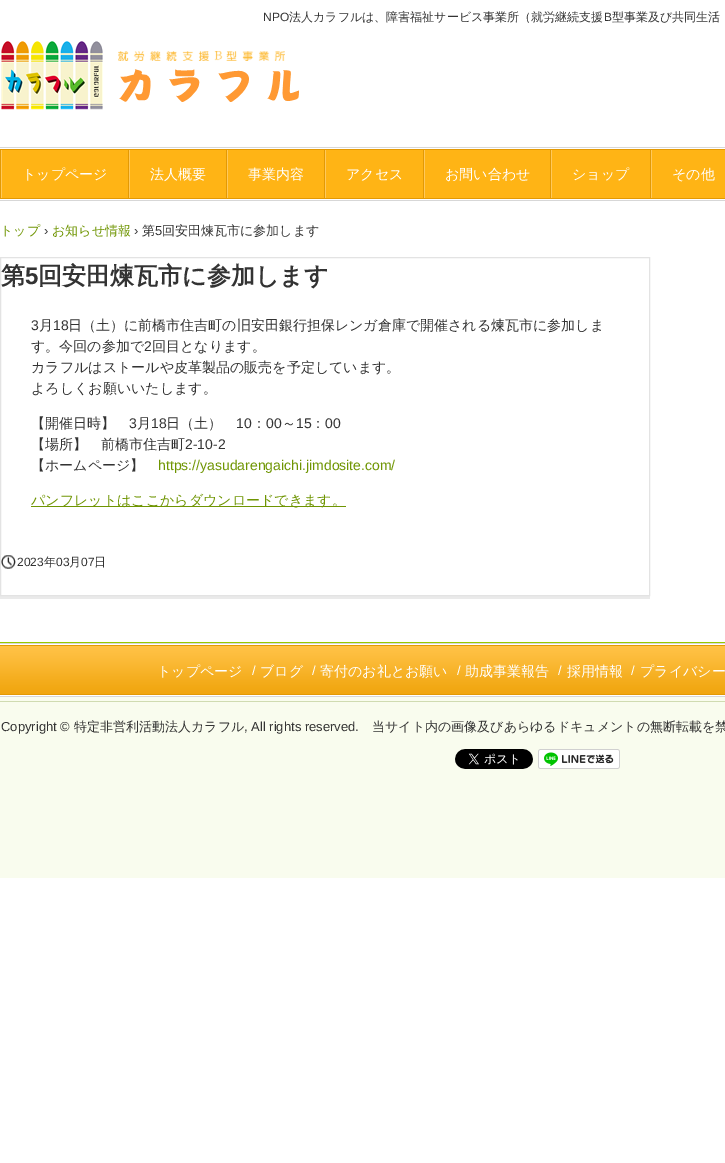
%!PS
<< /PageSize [725 1163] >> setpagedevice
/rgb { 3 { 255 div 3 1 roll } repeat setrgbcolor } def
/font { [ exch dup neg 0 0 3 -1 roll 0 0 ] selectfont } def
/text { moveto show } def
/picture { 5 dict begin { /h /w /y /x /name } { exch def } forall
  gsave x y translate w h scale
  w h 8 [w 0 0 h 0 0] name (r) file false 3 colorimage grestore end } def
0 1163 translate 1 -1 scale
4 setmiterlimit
255 255 255 rgb
0 0 725 1163 rectfill
(img_01.rgb) 1 41 298 69 picture
215 215 215 rgb
0 147 725 1 rectfill
0 200 725 1 rectfill
227 153 4 rgb
0 149 725 1 rectfill
255 180 21 rgb
2 150 723 48 rectfill
227 153 4 rgb
0 150 1 48 rectfill
128 150 1 48 rectfill
255 201 92 rgb
1 150 1 48 rectfill
227 153 4 rgb
226 150 1 48 rectfill
255 201 92 rgb
129 150 1 48 rectfill
227 153 4 rgb
324 150 1 48 rectfill
255 201 92 rgb
227 150 1 48 rectfill
227 153 4 rgb
423 150 1 48 rectfill
255 201 92 rgb
325 150 1 48 rectfill
227 153 4 rgb
550 150 1 48 rectfill
255 201 92 rgb
424 150 1 48 rectfill
227 153 4 rgb
650 150 1 48 rectfill
255 201 92 rgb
551 150 1 48 rectfill
651 150 1 48 rectfill
227 153 4 rgb
0 198 725 1 rectfill
234 234 234 rgb
0 596 650 3 rectfill
227 227 227 rgb
0.5 257.5 649 338 rectstroke
111 149 2 rgb
31 506 315 1 rectfill
(img_02.rgb) 1 555 15 14 picture
249 252 238 rgb
0 697 725 181 rectfill
151 202 0 rgb
0 642 725 1 rectfill
(img_03.rgb) 0 646 725 48 picture
215 215 215 rgb
0 643 725 1 rectfill
0 696 725 1 rectfill
227 153 4 rgb
0 645 725 1 rectfill
0 694 725 1 rectfill
208 219 177 rgb
0 701 725 1 rectfill
(img_04.rgb) 455 749 78 20 picture
(img_05.rgb) 538 749 82 20 picture
/LiberationSans-Regular 12 font
51 51 51 rgb
(NPO) 263 21 text
/WenQuanYiZenHei-Medium 12 font
(法人カラフルは、障害福祉サービス事業所（就労継続支援) 289 21 text
/LiberationSans-Regular 12 font
(B) 604 21 text
/WenQuanYiZenHei-Medium 12 font
(型事業及び共同生活) 612 21 text
/WenQuanYiZenHei-Medium 14 font
255 255 255 rgb
(トップページ) 22 179 text
(法人概要) 150 179 text
(事業内容) 248 179 text
(アクセス) 346 179 text
(お問い合わせ) 445 179 text
(ショップ) 572 179 text
(その他) 672 179 text
/WenQuanYiZenHei-Medium 13 font
111 149 2 rgb
(トップ) 0 235 text
/LiberationSans-Regular 13 font
51 51 51 rgb
(›) 44 235 text
/WenQuanYiZenHei-Medium 13 font
111 149 2 rgb
(お知らせ情報) 52 235 text
/LiberationSans-Regular 13 font
51 51 51 rgb
(›) 134 235 text
/WenQuanYiZenHei-Medium 13 font
(第) 142 235 text
/LiberationSans-Regular 13 font
(5) 155 235 text
/WenQuanYiZenHei-Medium 13 font
(回安田煉瓦市に参加します) 162 235 text
/WenQuanYiZenHei-Bold 24 font
(第) 1 284 text
/LiberationSans-Bold 24 font
(5) 25 284 text
/WenQuanYiZenHei-Bold 24 font
(回安田煉瓦市に参加します) 38 284 text
/LiberationSans-Regular 14 font
(3) 31 330 text
/WenQuanYiZenHei-Medium 14 font
(月) 39 330 text
/LiberationSans-Regular 14 font
(18) 53 330 text
/WenQuanYiZenHei-Medium 14 font
(日（土）に前橋市住吉町の旧安田銀行担保レンガ倉庫で開催される煉瓦市に参加しま) 68 330 text
(す。今回の参加で) 31 351 text
/LiberationSans-Regular 14 font
(2) 144 351 text
/WenQuanYiZenHei-Medium 14 font
(回目となります。) 152 351 text
(カラフルはストールや皮革製品の販売を予定しています。) 31 372 text
(よろしくお願いいたします。) 31 393 text
(【開催日時】) 31 428 text
/LiberationSans-Regular 14 font
(3) 129 428 text
/WenQuanYiZenHei-Medium 14 font
(月) 137 428 text
/LiberationSans-Regular 14 font
(18) 151 428 text
/WenQuanYiZenHei-Medium 14 font
(日（土）) 166 428 text
/LiberationSans-Regular 14 font
(10) 236 428 text
/WenQuanYiZenHei-Medium 14 font
(：) 252 428 text
/LiberationSans-Regular 14 font
(00) 266 428 text
/WenQuanYiZenHei-Medium 14 font
(～) 282 428 text
/LiberationSans-Regular 14 font
(15) 296 428 text
/WenQuanYiZenHei-Medium 14 font
(：) 311 428 text
/LiberationSans-Regular 14 font
(00) 325 428 text
/WenQuanYiZenHei-Medium 14 font
(【場所】　前橋市住吉町) 31 449 text
/LiberationSans-Regular 14 font
(2-10-2) 185 449 text
/WenQuanYiZenHei-Medium 14 font
(【ホームページ】) 31 470 text
/LiberationSans-Regular 14 font
111 149 2 rgb
(https://yasudarengaichi.jimdosite.com/) 158 470 text
/WenQuanYiZenHei-Medium 14 font
(パンフレットはここからダウンロードできます。) 31 505 text
/LiberationSans-Regular 12 font
51 51 51 rgb
(2023) 17 566 text
/WenQuanYiZenHei-Medium 12 font
(年) 44 566 text
/LiberationSans-Regular 12 font
(03) 56 566 text
/WenQuanYiZenHei-Medium 12 font
(月) 69 566 text
/LiberationSans-Regular 12 font
(07) 81 566 text
/WenQuanYiZenHei-Medium 12 font
(日) 94 566 text
/WenQuanYiZenHei-Medium 14 font
255 255 255 rgb
(トップページ) 157 676 text
/LiberationSans-Regular 13 font
(/) 252 675 text
/WenQuanYiZenHei-Medium 14 font
(ブログ) 260 676 text
/LiberationSans-Regular 13 font
(/) 312 675 text
/WenQuanYiZenHei-Medium 14 font
(寄付のお礼とお願い) 320 676 text
/LiberationSans-Regular 13 font
(/) 457 675 text
/WenQuanYiZenHei-Medium 14 font
(助成事業報告) 465 676 text
/LiberationSans-Regular 13 font
(/) 558 675 text
/WenQuanYiZenHei-Medium 14 font
(採用情報) 567 676 text
/LiberationSans-Regular 13 font
(/) 631 675 text
/WenQuanYiZenHei-Medium 14 font
(プライバシー) 640 676 text
/LiberationSans-Regular 13 font
51 51 51 rgb
(Copyright ©) 1 731 text
/WenQuanYiZenHei-Medium 13 font
(特定非営利活動法人カラフル) 74 731 text
/LiberationSans-Regular 13 font
(, All rights reserved.) 244 731 text
/WenQuanYiZenHei-Medium 13 font
(当サイト内の画像及びあらゆるドキュメントの無断転載を禁) 372 731 text
showpage
